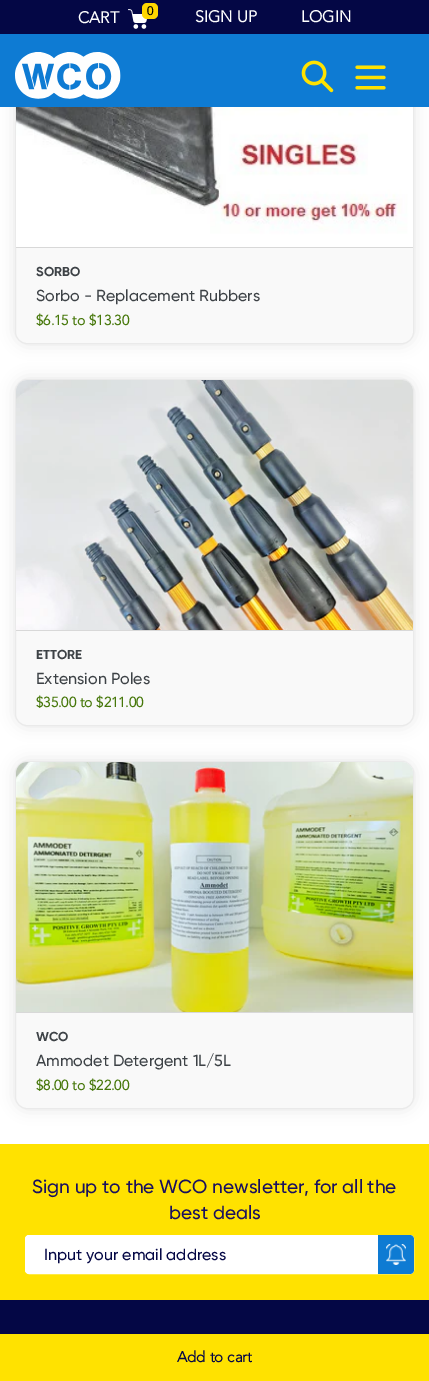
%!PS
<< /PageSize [429 1381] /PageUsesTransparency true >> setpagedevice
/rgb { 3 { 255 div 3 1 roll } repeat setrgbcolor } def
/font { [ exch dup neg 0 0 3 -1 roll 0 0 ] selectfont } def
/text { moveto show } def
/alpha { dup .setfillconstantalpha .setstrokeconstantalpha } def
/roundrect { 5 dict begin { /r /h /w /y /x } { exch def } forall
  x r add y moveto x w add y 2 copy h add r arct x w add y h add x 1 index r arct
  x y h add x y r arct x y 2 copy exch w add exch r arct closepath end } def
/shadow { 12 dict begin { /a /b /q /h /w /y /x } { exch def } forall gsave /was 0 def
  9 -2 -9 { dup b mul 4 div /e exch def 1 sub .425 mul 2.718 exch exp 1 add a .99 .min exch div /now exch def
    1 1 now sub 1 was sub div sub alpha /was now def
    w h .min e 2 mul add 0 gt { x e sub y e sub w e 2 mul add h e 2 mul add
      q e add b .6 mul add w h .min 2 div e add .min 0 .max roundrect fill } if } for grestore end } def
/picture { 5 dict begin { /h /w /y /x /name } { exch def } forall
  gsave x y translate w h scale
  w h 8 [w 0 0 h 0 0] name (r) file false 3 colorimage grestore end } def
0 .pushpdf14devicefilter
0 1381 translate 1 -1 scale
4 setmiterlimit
255 255 255 rgb
0 0 429 1381 rectfill
gsave
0 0 moveto 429 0 rlineto 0 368 rlineto -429 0 rlineto closepath 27 -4 moveto 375 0 rlineto 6.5 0 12 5.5 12 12 rcurveto 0 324 rlineto 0 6.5 -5.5 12 -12 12 rcurveto -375 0 rlineto -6.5 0 -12 -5.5 -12 -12 rcurveto 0 -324 rlineto 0 -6.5 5.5 -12 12 -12 rcurveto closepath eoclip newpath
229 229 229 rgb
15 -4 399 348 12 7.5 1 shadow
grestore
0.2 alpha
224 224 226 rgb
15.5 -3.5 398 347 11.5 roundrect fill
1 alpha
234 234 234 rgb
15.5 -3.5 398 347 11.5 roundrect stroke
4 7 69 rgb
0 0 429 34 rectfill
(img_01.rgb) 128 9 19 20 picture
255 215 0 rgb
142 3 16 16 5 roundrect fill
14 123 211 rgb
0 34 429 73 rectfill
(img_02.rgb) 15 52 106 47 picture
(img_03.rgb) 301 60 33 33 picture
(img_04.rgb) 355 65 31 25 picture
216 216 216 rgb
16 247 397 1 rectfill
(img_05.rgb) 16 107 397 140 picture
gsave
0 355 moveto 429 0 rlineto 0 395 rlineto -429 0 rlineto closepath 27 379 moveto 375 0 rlineto 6.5 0 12 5.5 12 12 rcurveto 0 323 rlineto 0 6.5 -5.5 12 -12 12 rcurveto -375 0 rlineto -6.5 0 -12 -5.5 -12 -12 rcurveto 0 -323 rlineto 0 -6.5 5.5 -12 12 -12 rcurveto closepath eoclip newpath
229 229 229 rgb
15 379 399 347 12 7.5 1 shadow
grestore
0.2 alpha
224 224 226 rgb
15.5 379.5 398 346 11.5 roundrect fill
1 alpha
234 234 234 rgb
15.5 379.5 398 346 11.5 roundrect stroke
216 216 216 rgb
16 630 397 1 rectfill
(img_06.rgb) 16 380 397 250 picture
gsave
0 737 moveto 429 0 rlineto 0 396 rlineto -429 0 rlineto closepath 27 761 moveto 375 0 rlineto 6.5 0 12 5.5 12 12 rcurveto 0 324 rlineto 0 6.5 -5.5 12 -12 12 rcurveto -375 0 rlineto -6.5 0 -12 -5.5 -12 -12 rcurveto 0 -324 rlineto 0 -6.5 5.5 -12 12 -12 rcurveto closepath eoclip newpath
229 229 229 rgb
15 761 399 348 12 7.5 1 shadow
grestore
0.2 alpha
224 224 226 rgb
15.5 761.5 398 347 11.5 roundrect fill
1 alpha
234 234 234 rgb
15.5 761.5 398 347 11.5 roundrect stroke
216 216 216 rgb
16 1012 397 1 rectfill
(img_07.rgb) 16 762 397 250 picture
255 226 0 rgb
0 1334 429 47 rectfill
4 7 69 rgb
0 1300 429 34 rectfill
255 226 0 rgb
0 1144 429 156 rectfill
255 255 255 rgb
25.5 1235.5 388 38 3.5 roundrect gsave fill grestore
stroke
14 123 211 rgb
378 1235 moveto 32 0 rlineto 2 0 4 2 4 4 rcurveto 0 31 rlineto 0 2 -2 4 -4 4 rcurveto -32 0 rlineto closepath fill
(img_08.rgb) 386 1244 20 21 picture
/Avenir-Bold 16 font
255 255 255 rgb
(CART) 78 23 text
/Avenir-Bold 12 font
0 0 0 rgb
(0) 147 15 text
/Avenir-Bold 16 font
255 255 255 rgb
(SIGN UP) 195 22 text
(LOGIN) 301 22 text
/Gilroy-Bold 13 font
61 66 70 rgb
(SORBO) 36 276 text
/Gilroy-Medium 16 font
(Sorbo - Replacement Rubbers) 36 301 text
/Avenir-Bold 14 font
71 120 11 rgb
($6.15 to $13.30) 36 325 text
/Gilroy-Bold 13 font
61 66 70 rgb
(ETTORE) 36 659 text
/Gilroy-Medium 16 font
(Extension Poles) 36 684 text
/Avenir-Bold 14 font
71 120 11 rgb
($35.00 to $211.00) 36 707 text
/Gilroy-Bold 13 font
61 66 70 rgb
(WCO) 36 1041 text
/Gilroy-Medium 16 font
(Ammodet Detergent 1L/5L) 36 1066 text
/Avenir-Bold 14 font
71 120 11 rgb
($8.00 to $22.00) 36 1090 text
/Avenir-Bold 15 font
4 7 69 rgb
(Add to cart) 177 1362 text
/Gilroy-Medium 19 font
25 16 95 rgb
(Sign up to the WCO newsletter, for all the) 32 1193 text
(best deals) 169 1219 text
/Gilroy-Medium 16 font
4 7 69 rgb
(Input your email address) 44 1260 text
.poppdf14devicefilter showpage
